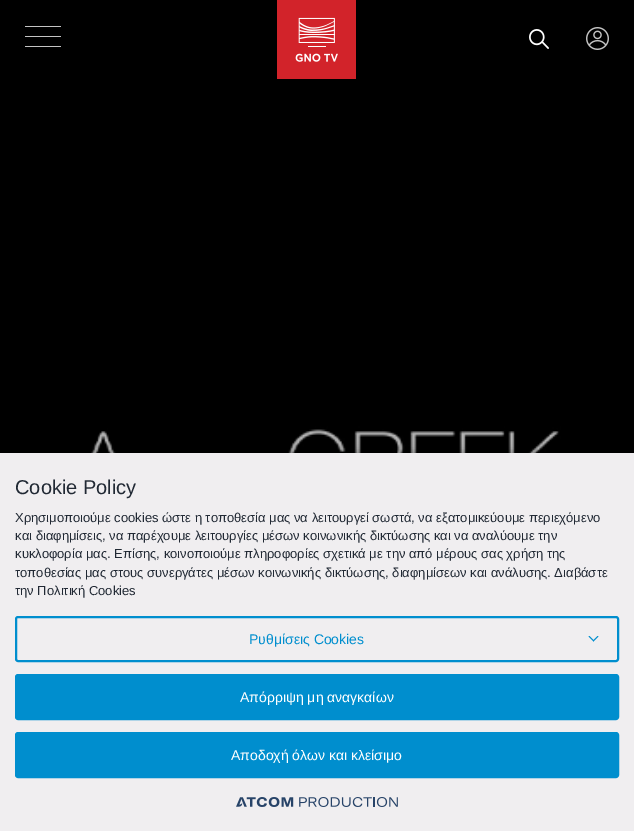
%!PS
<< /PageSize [634 831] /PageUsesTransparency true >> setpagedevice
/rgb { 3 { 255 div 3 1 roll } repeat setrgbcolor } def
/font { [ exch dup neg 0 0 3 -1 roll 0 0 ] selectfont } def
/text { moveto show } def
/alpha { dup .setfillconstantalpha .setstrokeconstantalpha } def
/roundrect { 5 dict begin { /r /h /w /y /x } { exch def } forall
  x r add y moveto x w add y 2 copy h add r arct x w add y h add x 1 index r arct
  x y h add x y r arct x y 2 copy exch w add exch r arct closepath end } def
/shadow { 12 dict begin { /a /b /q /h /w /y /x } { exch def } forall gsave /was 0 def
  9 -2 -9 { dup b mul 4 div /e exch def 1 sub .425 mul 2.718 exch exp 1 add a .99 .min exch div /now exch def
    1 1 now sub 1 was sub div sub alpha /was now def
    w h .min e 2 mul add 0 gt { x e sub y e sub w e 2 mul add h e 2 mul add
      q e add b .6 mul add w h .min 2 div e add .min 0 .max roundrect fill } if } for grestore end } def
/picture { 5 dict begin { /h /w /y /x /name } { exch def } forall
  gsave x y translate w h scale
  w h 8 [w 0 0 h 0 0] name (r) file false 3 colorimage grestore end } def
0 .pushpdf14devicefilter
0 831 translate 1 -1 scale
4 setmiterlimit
255 255 255 rgb
0 0 634 831 rectfill
(img_01.rgb) 0 0 634 453 picture
196 196 196 rgb
25 26 36 1 rectfill
25 36 36 1 rectfill
25 46 36 1 rectfill
(img_02.rgb) 277 0 79 79 picture
(img_03.rgb) 529 29 20 20 picture
(img_04.rgb) 586 27 23 23 picture
0 0 0 rgb
0 453 634 378 0 5 0.37 shadow
240 238 240 rgb
0 453 634 378 rectfill
0 142 206 rgb
2 setlinewidth
16 617 602 44 2 roundrect stroke
597.5 636 moveto 1 0.5 rlineto -5 5 rlineto -0.5 -1 rlineto closepath fill
589.5 636 moveto 4.5 4.5 rlineto -0.5 1 rlineto -5 -5 rlineto closepath fill
16 675 602 44 2 roundrect gsave fill grestore
stroke
16 733 602 44 2 roundrect gsave fill grestore
stroke
(img_05.rgb) 236 797 162 10 picture
/LiberationSans-Regular 20 font
33 41 52 rgb
(Cookie Policy) 15 494 text
/LiberationSans-Regular 13 font
(Χρησιμοποιούμε cookies ώστε η τοποθεσία μας να λειτουργεί σωστά, να εξατομικεύουμε περιεχόμενο) 15 522 text
(και διαφημίσεις, να παρέχουμε λειτουργίες μέσων κοινωνικής δικτύωσης και να αναλύουμε την) 15 540 text
(κυκλοφορία μας. Επίσης, κοινοποιούμε πληροφορίες σχετικά με την από μέρους σας χρήση της) 15 558 text
(τοποθεσίας μας στους συνεργάτες μέσων κοινωνικής δικτύωσης, διαφημίσεων και ανάλυσης. Διαβάστε) 15 577 text
(την Πολιτική Cookies) 15 595 text
/LiberationSans-Regular 14 font
0 142 206 rgb
(Ρυθμίσεις Cookies) 249 644 text
255 255 255 rgb
(Απόρριψη μη αναγκαίων) 240 702 text
(Αποδοχή όλων και κλείσιμο) 231 760 text
.poppdf14devicefilter showpage
